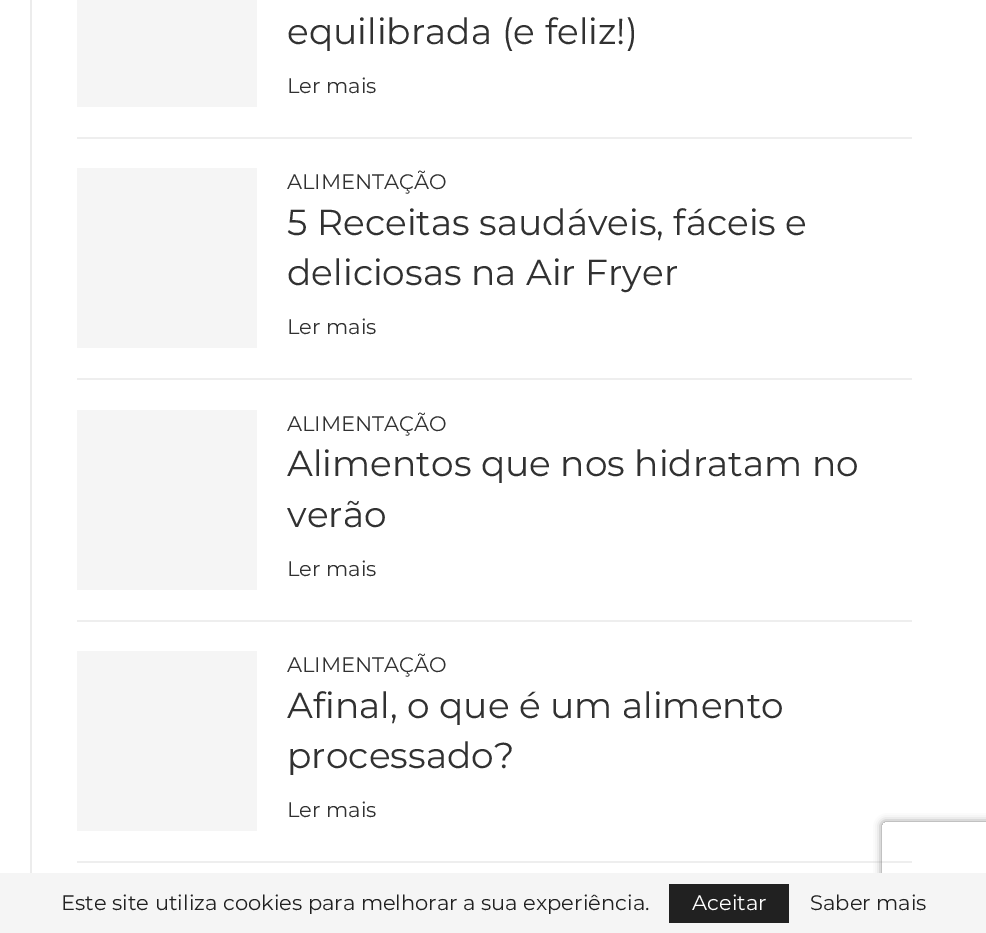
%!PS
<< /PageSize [986 933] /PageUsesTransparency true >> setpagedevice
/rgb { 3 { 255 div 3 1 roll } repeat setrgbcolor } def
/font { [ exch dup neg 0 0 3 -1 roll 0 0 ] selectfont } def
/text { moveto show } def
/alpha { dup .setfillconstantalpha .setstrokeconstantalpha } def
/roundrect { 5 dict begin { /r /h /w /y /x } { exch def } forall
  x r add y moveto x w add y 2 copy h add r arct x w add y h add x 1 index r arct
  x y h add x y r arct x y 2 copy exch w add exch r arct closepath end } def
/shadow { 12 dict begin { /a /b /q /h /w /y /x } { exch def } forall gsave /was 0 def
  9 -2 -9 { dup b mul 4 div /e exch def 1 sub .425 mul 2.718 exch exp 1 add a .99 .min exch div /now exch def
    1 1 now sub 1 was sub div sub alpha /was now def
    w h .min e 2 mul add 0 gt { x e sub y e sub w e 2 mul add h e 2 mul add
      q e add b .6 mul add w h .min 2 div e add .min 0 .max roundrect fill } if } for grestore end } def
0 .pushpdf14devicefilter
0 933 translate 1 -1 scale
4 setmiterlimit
255 255 255 rgb
0 0 986 933 rectfill
236 236 236 rgb
30 0 2 873 rectfill
238 238 238 rgb
77 137 835 2 rectfill
245 245 245 rgb
77 0 180 107 rectfill
238 238 238 rgb
77 378 835 2 rectfill
245 245 245 rgb
77 168 180 180 rectfill
238 238 238 rgb
77 620 835 2 rectfill
245 245 245 rgb
77 410 180 180 rectfill
238 238 238 rgb
77 861 835 2 rectfill
245 245 245 rgb
77 651 180 180 rectfill
gsave
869 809 moveto 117 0 rlineto 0 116 rlineto -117 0 rlineto closepath 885 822 moveto 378 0 rlineto 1.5 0 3 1.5 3 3 rcurveto 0 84 rlineto 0 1.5 -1.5 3 -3 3 rcurveto -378 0 rlineto -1.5 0 -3 -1.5 -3 -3 rcurveto 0 -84 rlineto 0 -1.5 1.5 -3 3 -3 rcurveto closepath eoclip newpath
128 128 128 rgb
882 822 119 90 3 4 1 shadow
grestore
0 873 986 60 rectfill
33 33 33 rgb
669 884 120 39 rectfill
/Montserrat-Regular 36 font
49 49 49 rgb
(equilibrada \(e feliz!\)) 287 44 text
/Montserrat-Regular 21 font
(Ler mais) 287 93 text
(ALIMENTAÇÃO) 287 189 text
/Montserrat-Regular 36 font
(5 Receitas saudáveis, fáceis e) 287 235 text
(deliciosas na Air Fryer) 287 285 text
/Montserrat-Regular 21 font
(Ler mais) 287 334 text
(ALIMENTAÇÃO) 287 431 text
/Montserrat-Regular 36 font
(Alimentos que nos hidratam no) 287 476 text
(verão) 287 527 text
/Montserrat-Regular 21 font
(Ler mais) 287 576 text
(ALIMENTAÇÃO) 287 672 text
/Montserrat-Regular 36 font
(Afinal, o que é um alimento) 287 718 text
(processado?) 287 768 text
/Montserrat-Regular 21 font
(Ler mais) 287 817 text
33 33 33 rgb
(Este site utiliza cookies para melhorar a sua experiência.) 61 910 text
255 255 255 rgb
(Aceitar) 692 910 text
33 33 33 rgb
(Saber mais) 810 910 text
.poppdf14devicefilter showpage
